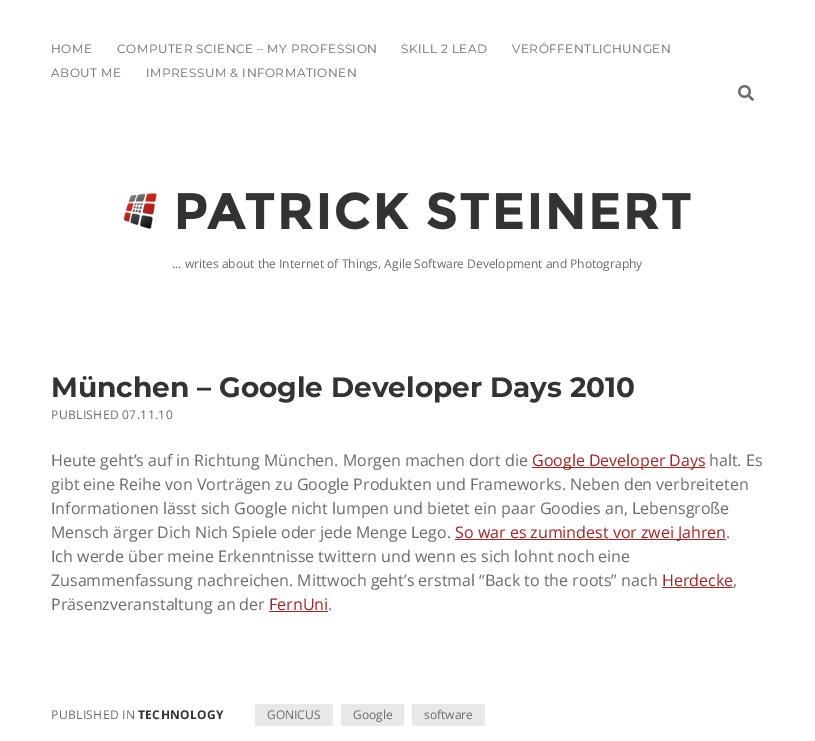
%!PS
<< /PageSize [815 741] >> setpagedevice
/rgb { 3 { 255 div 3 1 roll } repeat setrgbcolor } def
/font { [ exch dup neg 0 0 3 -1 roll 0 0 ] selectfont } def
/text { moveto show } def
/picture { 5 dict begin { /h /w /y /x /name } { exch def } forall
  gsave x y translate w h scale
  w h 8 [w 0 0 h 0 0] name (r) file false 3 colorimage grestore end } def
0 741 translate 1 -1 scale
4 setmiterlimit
255 255 255 rgb
0 0 815 741 rectfill
(img_01.rgb) 738 85 16 16 picture
(img_02.rgb) 123 192 568 38 picture
167 34 34 rgb
532 467 173 1 rectfill
455 539 271 1 rectfill
662 587 71 1 rectfill
269 611 59 1 rectfill
232 232 232 rgb
255 704 78 22 rectfill
341 704 63 22 rectfill
412 704 73 22 rectfill
/Montserrat-Regular 12 font
107 107 107 rgb
51 53 moveto 0.5 0 (HOME) ashow
117 53 moveto 0.5 0 (COMPUTER SCIENCE – MY PROFESSION) ashow
401 53 moveto 0.5 0 (SKILL 2 LEAD) ashow
512 53 moveto 0.5 0 (VERÖFFENTLICHUNGEN) ashow
51 77 moveto 0.5 0 (ABOUT ME) ashow
146 77 moveto 0.5 0 (IMPRESSUM & INFORMATIONEN) ashow
/OpenSans-Regular 12 font
(... writes about the Internet of Things, Agile Software Development and Photography) 172 268 text
/Montserrat-Bold 28 font
51 51 51 rgb
(München – Google Developer Days 2010) 51 397 text
/OpenSans-Regular 12 font
107 107 107 rgb
51 419 moveto 0.4 0 (PUBLISHED 07.11.10) ashow
/OpenSans-Regular 16 font
(Heute geht’s auf in Richtung München. Morgen machen dort die) 51 466 text
167 34 34 rgb
(Google Developer Days) 532 466 text
107 107 107 rgb
(halt. Es) 709 466 text
(gibt eine Reihe von Vorträgen zu Google Produkten und Frameworks. Neben den verbreiteten) 51 490 text
(Informationen lässt sich Google nicht lumpen und bietet ein paar Goodies an, Lebensgroße) 51 514 text
(Mensch ärger Dich Nich Spiele oder jede Menge Lego.) 51 538 text
167 34 34 rgb
(So war es zumindest vor zwei Jahren) 455 538 text
107 107 107 rgb
(.) 726 538 text
(Ich werde über meine Erkenntnisse twittern und wenn es sich lohnt noch eine) 51 562 text
(Zusammenfassung nachreichen. Mittwoch geht’s erstmal “Back to the roots” nach) 51 586 text
167 34 34 rgb
(Herdecke) 662 586 text
107 107 107 rgb
(,) 733 586 text
(Präsenzveranstaltung an der) 51 610 text
167 34 34 rgb
(FernUni) 269 610 text
107 107 107 rgb
(.) 328 610 text
/OpenSans-Regular 12 font
51 719 moveto 0.4 0 (PUBLISHED IN) ashow
/OpenSans-Bold 12 font
51 51 51 rgb
138 719 moveto 0.4 0 (TECHNOLOGY) ashow
/OpenSans-Regular 12 font
107 107 107 rgb
(GONICUS) 267 719 text
(Google) 353 719 text
(software) 424 719 text
showpage
